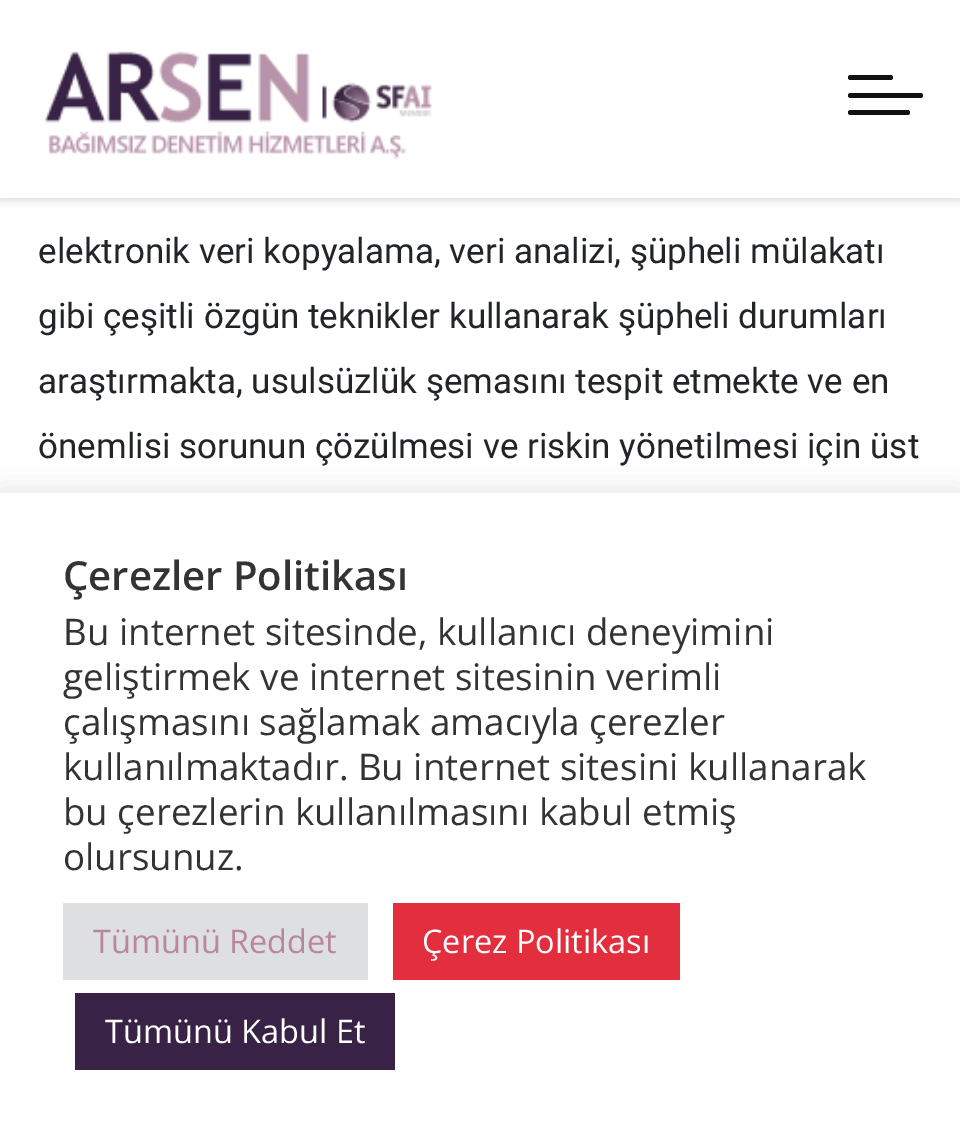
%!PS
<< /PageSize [960 1143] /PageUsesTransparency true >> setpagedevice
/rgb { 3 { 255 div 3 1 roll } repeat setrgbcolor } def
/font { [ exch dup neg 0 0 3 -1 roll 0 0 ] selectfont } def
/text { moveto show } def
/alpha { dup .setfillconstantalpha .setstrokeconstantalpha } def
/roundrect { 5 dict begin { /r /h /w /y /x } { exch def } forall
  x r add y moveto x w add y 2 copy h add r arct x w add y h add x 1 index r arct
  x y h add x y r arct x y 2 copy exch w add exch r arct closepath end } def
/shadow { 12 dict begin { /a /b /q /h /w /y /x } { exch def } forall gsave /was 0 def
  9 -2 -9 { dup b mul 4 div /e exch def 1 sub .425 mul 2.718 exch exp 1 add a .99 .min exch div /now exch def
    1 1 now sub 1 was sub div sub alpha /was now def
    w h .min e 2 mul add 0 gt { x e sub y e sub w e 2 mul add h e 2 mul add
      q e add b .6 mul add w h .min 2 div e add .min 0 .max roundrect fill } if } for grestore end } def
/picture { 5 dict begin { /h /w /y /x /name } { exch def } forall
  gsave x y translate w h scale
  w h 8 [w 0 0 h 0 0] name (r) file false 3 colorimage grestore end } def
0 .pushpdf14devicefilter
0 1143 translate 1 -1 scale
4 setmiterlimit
255 255 255 rgb
0 0 960 1143 rectfill
0 0 0 rgb
0 3 960 197 0 4 0.15 shadow
255 255 255 rgb
0 0 960 198 rectfill
(img_01.rgb) 45 51 387 109 picture
17 17 17 rgb
848 75 45 5 2.5 roundrect fill
848 93 75 5 2.5 roundrect fill
848 110 62 5 2.5 roundrect fill
172 171 171 rgb
0 490 960 653 0 12.5 0.3 shadow
255 255 255 rgb
0 493 960 650 rectfill
222 223 224 rgb
63 903 305 77 rectfill
227 46 61 rgb
393 903 287 77 rectfill
56 34 70 rgb
75 993 320 77 rectfill
/Roboto-Regular 35 font
33 37 41 rgb
(elektronik veri kopyalama, veri analizi, şüpheli mülakatı) 38 263 text
(gibi çeşitli özgün teknikler kullanarak şüpheli durumları) 38 328 text
(araştırmakta, usulsüzlük şemasını tespit etmekte ve en) 38 393 text
(önemlisi sorunun çözülmesi ve riskin yönetilmesi için üst) 38 458 text
/OpenSans-SemiBold 40 font
51 51 51 rgb
(Çerezler Politikası) 63 590 text
/OpenSans-Regular 36.7 font
(Bu internet sitesinde, kullanıcı deneyimini) 63 645 text
(geliştirmek ve internet sitesinin verimli) 63 690 text
(çalışmasını sağlamak amacıyla çerezler) 63 735 text
(kullanılmaktadır. Bu internet sitesini kullanarak) 63 780 text
(bu çerezlerin kullanılmasını kabul etmiş) 63 825 text
(olursunuz.) 63 870 text
/OpenSans-Regular 32.5 font
184 134 157 rgb
(Tümünü Reddet) 93 953 text
255 255 255 rgb
(Çerez Politikası) 422 953 text
(Tümünü Kabul Et) 105 1043 text
.poppdf14devicefilter showpage
